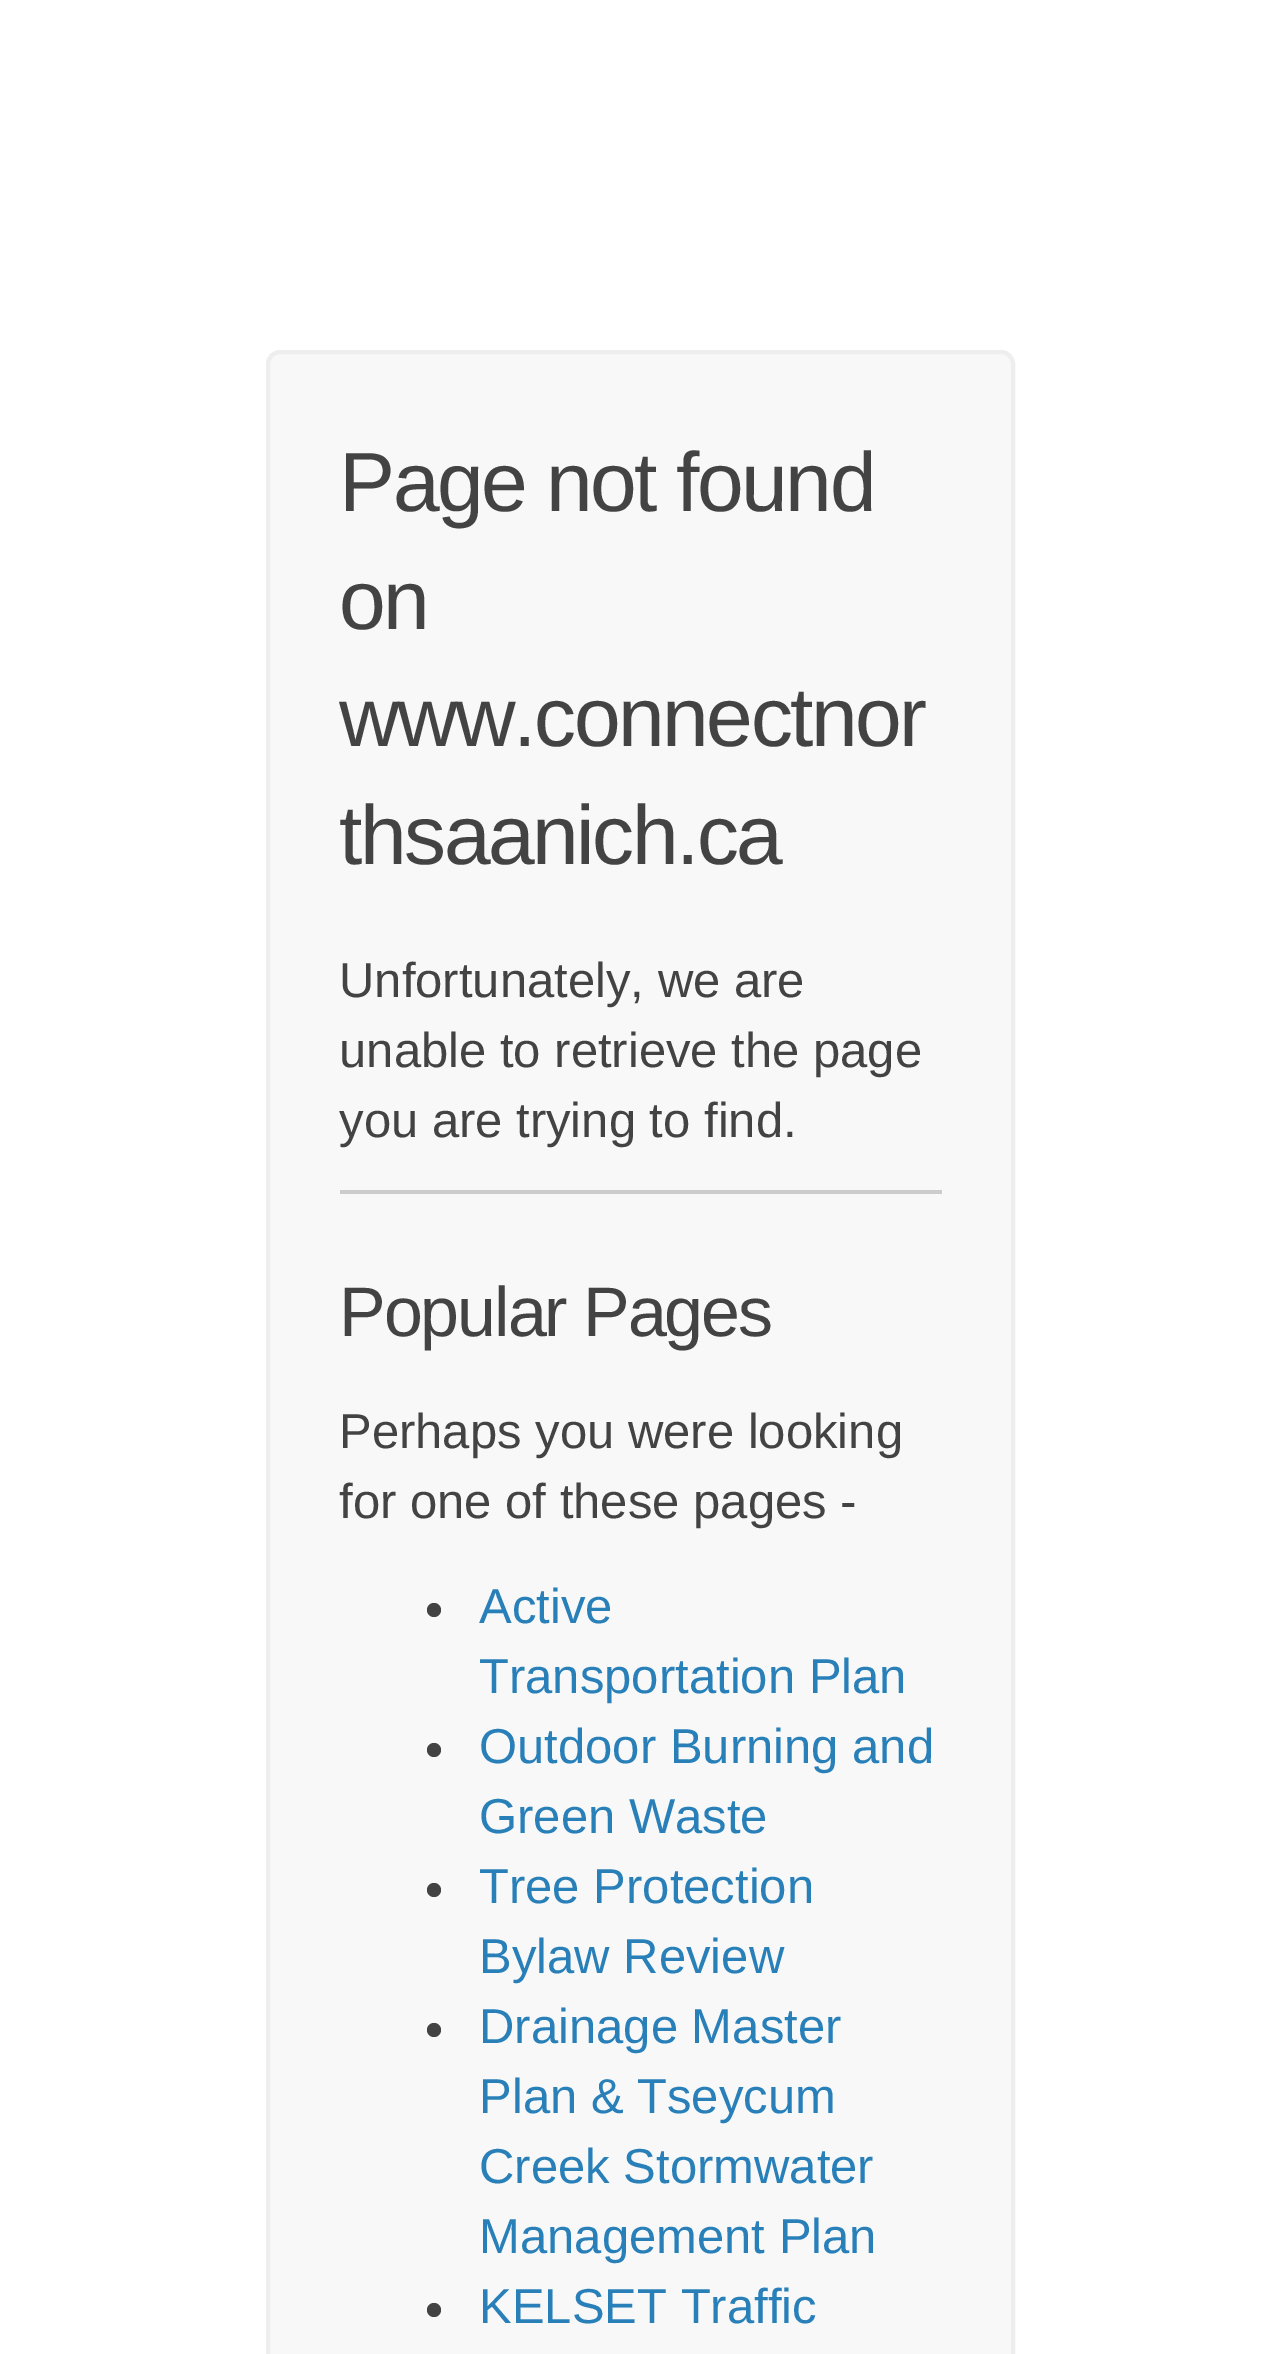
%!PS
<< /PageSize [1280 2354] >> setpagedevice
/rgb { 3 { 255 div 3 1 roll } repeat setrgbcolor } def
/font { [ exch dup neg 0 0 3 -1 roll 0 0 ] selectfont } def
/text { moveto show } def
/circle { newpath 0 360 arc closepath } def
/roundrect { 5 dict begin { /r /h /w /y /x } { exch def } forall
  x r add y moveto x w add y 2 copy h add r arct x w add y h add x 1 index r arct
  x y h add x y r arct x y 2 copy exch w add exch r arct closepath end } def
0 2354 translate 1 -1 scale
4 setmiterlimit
255 255 255 rgb
0 0 1280 2354 rectfill
248 248 248 rgb
268 352 745 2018 12 roundrect gsave fill grestore
238 238 238 rgb
4 setlinewidth
stroke
204 204 204 rgb
340 1190 602 4 rectfill
67 67 67 rgb
434 1610 7 circle fill
434 1750 7 circle fill
434 1890 7 circle fill
434 2030 7 circle fill
434 2310 7 circle fill
/LiberationSans-Regular 84 font
339 511 moveto -2.5 0 (Page not found) ashow
339 629 moveto -2.5 0 (on) ashow
339 746 moveto -2.5 0 (www.connectnor) ashow
339 864 moveto -2.5 0 (thsaanich.ca) ashow
/LiberationSans-Regular 49 font
(Unfortunately, we are) 339 997 text
(unable to retrieve the page) 339 1067 text
(you are trying to find.) 339 1137 text
/LiberationSans-Regular 70 font
339 1336 moveto -2.1 0 (Popular Pages) ashow
/LiberationSans-Regular 49 font
(Perhaps you were looking) 339 1448 text
(for one of these pages -) 339 1518 text
41 128 185 rgb
(Active) 479 1623 text
(Transportation Plan) 479 1693 text
(Outdoor Burning and) 479 1763 text
(Green Waste) 479 1833 text
(Tree Protection) 479 1903 text
(Bylaw Review) 479 1973 text
(Drainage Master) 479 2043 text
(Plan & Tseycum) 479 2113 text
(Creek Stormwater) 479 2183 text
(Management Plan) 479 2253 text
(KELSET Traffic) 479 2323 text
showpage
